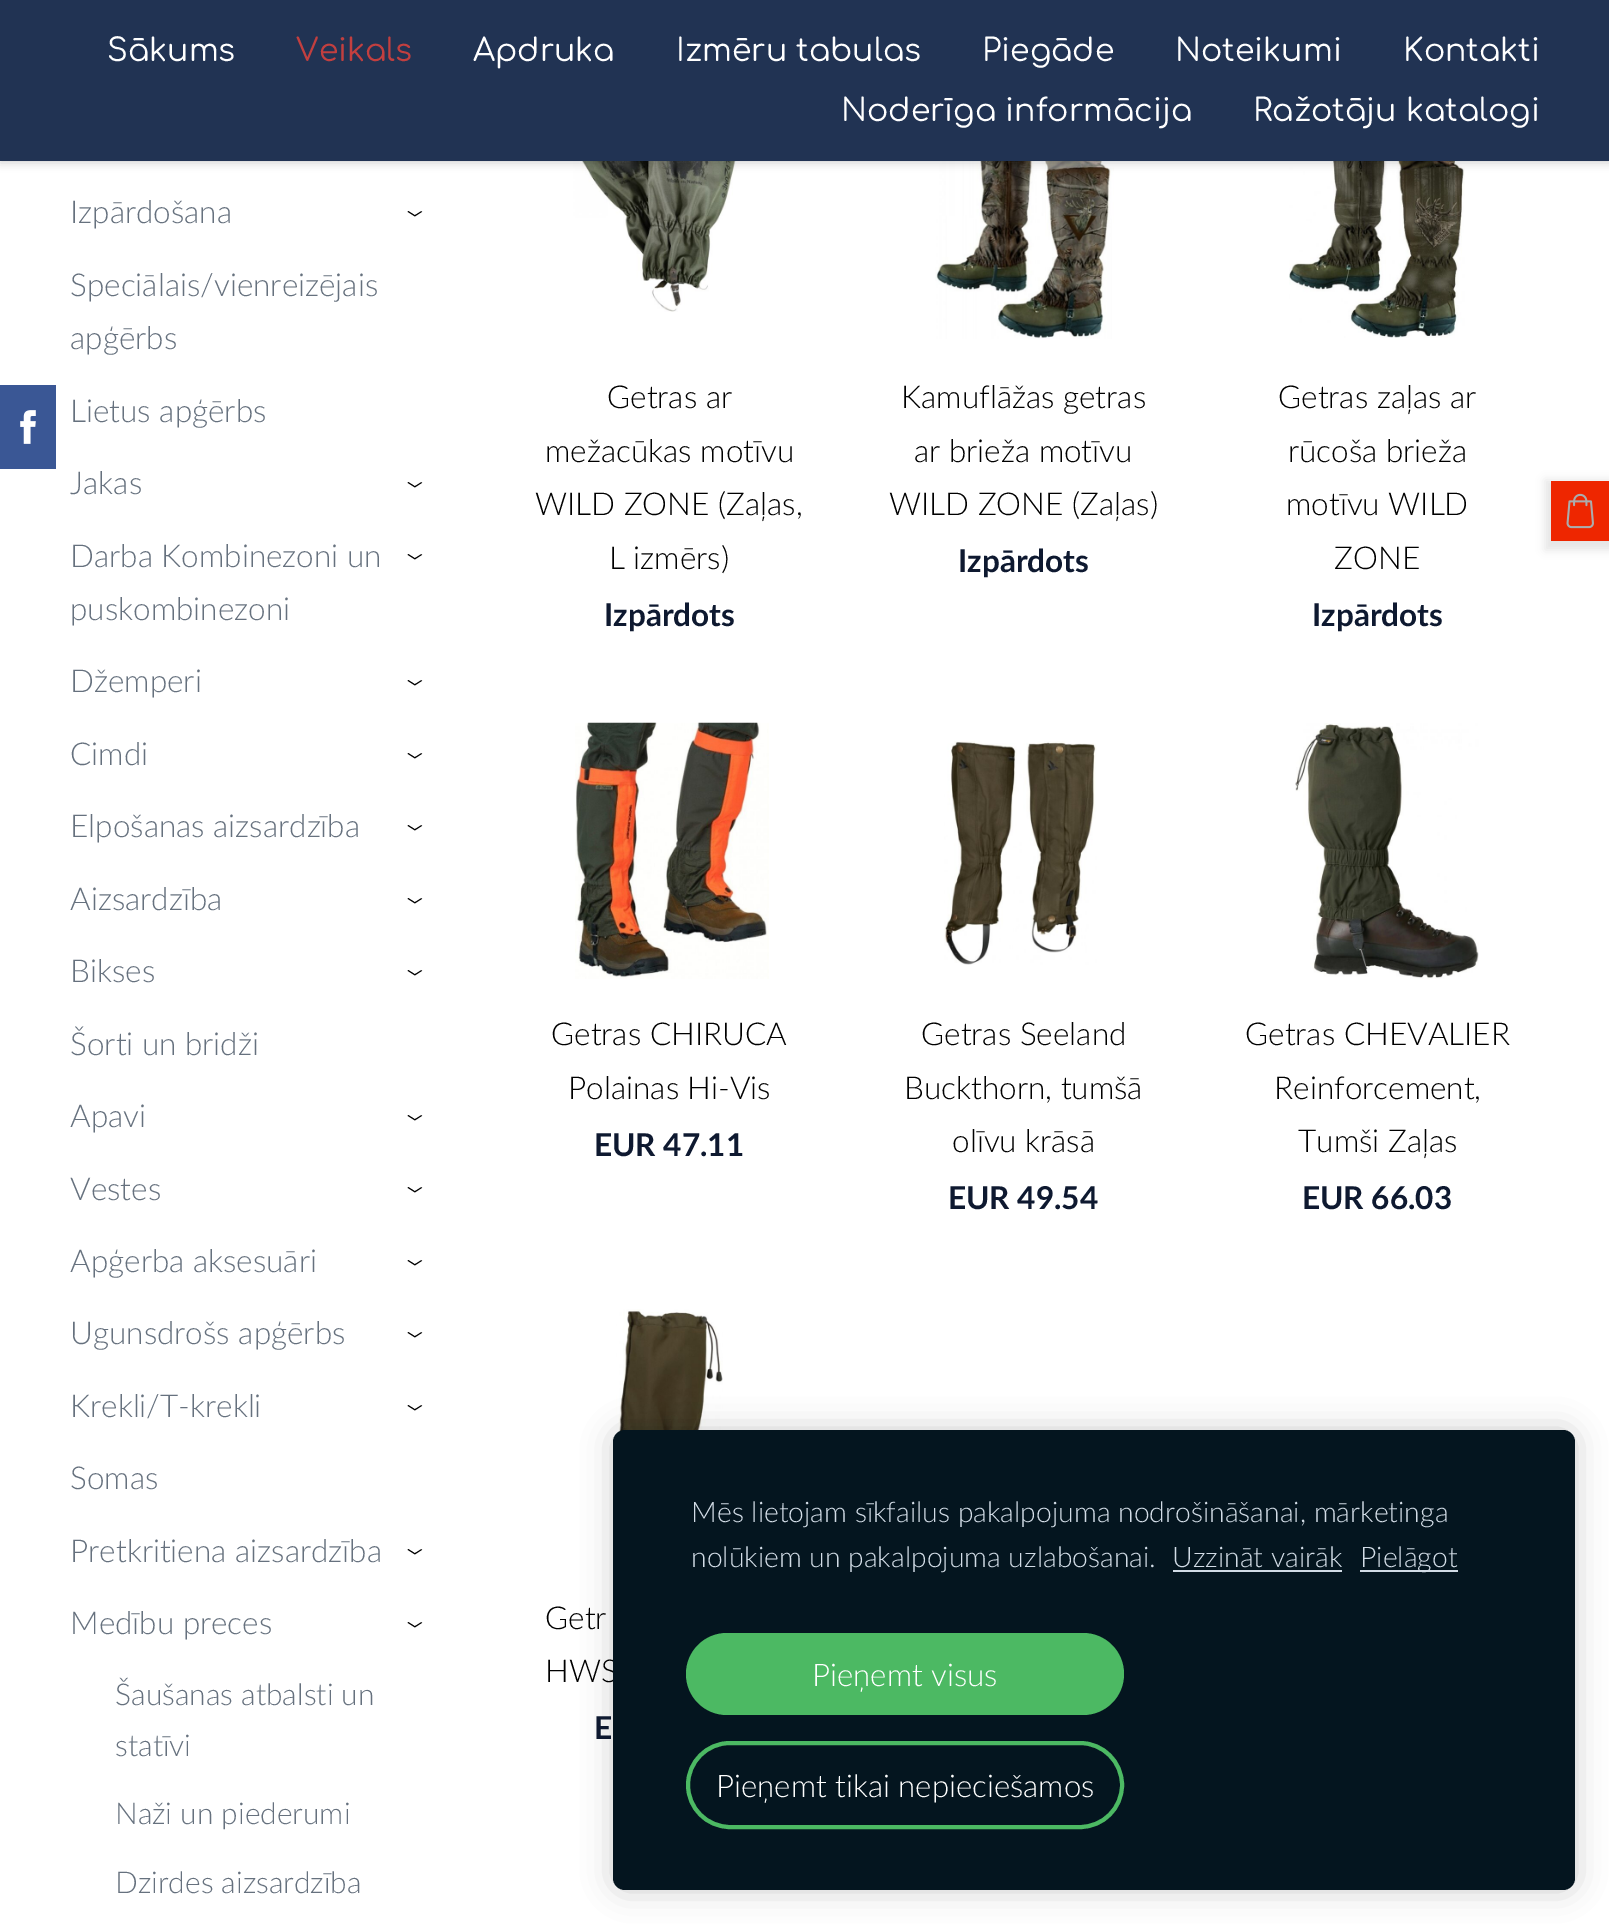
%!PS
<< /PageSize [1609 1925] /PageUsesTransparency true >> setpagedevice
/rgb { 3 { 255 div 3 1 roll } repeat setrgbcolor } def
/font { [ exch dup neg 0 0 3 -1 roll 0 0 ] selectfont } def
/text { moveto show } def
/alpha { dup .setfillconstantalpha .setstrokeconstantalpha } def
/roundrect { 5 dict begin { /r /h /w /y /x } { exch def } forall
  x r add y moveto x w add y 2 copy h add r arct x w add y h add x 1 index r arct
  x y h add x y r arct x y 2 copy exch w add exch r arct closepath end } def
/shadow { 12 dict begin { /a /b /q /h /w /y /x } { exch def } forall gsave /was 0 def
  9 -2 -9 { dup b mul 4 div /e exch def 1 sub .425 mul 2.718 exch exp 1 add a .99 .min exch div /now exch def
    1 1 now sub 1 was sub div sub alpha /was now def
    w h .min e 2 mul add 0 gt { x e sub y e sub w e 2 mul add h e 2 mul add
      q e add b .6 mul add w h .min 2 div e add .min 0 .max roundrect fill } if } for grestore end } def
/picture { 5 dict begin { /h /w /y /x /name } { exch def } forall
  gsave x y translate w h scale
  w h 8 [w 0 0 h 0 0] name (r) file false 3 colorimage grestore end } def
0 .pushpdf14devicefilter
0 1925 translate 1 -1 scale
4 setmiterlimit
255 255 255 rgb
0 0 1609 1925 rectfill
58 87 149 rgb
0 385 56 84 rectfill
(img_01.rgb) 20 410 16 34 picture
(img_02.rgb) 559 161 182 151 picture
(img_03.rgb) 935 161 179 178 picture
(img_04.rgb) 1289 161 176 177 picture
0 0 0 rgb
0 2 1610 161 0 4.5 0.17 shadow
33 51 83 rgb
0 0 1609 161 rectfill
(img_05.rgb) 575 722 194 257 picture
(img_06.rgb) 944 741 153 224 picture
(img_07.rgb) 1295 723 184 256 picture
(img_08.rgb) 616 1309 107 126 picture
0 0 0 rgb
1545 480 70 70 0 4.5 0.1 shadow
238 38 0 rgb
1551 481 58 60 rectfill
(img_09.rgb) 1566 493 28 36 picture
0 0 0 rgb
613 1430 962 460 12 15 0.2 shadow
/Comfortaa-Regular 31.5 font
255 255 255 rgb
(Sākums) 107 61 text
194 63 63 rgb
(Veikals) 296 61 text
255 255 255 rgb
(Apdruka) 473 61 text
(Izmēru tabulas) 676 61 text
(Piegāde) 982 61 text
(Noteikumi) 1175 61 text
(Kontakti) 1403 61 text
(Noderīga informācija) 841 121 text
(Ražotāju katalogi) 1253 121 text
/Lato-Light 31.5 font
102 113 126 rgb
(Izpārdošana) 70 223 text
/Lato-Light 38 font
0 0 0 rgb
gsave 405 208 translate 90 rotate 0 0 moveto (›) show grestore
/Lato-Light 31.5 font
102 113 126 rgb
(Speciālais/vienreizējais) 70 296 text
(apģērbs) 70 349 text
(Lietus apģērbs) 70 422 text
(Jakas) 70 494 text
/Lato-Light 38 font
0 0 0 rgb
gsave 405 479 translate 90 rotate 0 0 moveto (›) show grestore
/Lato-Light 31.5 font
102 113 126 rgb
(Darba Kombinezoni un) 70 567 text
(puskombinezoni) 70 620 text
/Lato-Light 38 font
0 0 0 rgb
gsave 405 551 translate 90 rotate 0 0 moveto (›) show grestore
/Lato-Light 31.5 font
102 113 126 rgb
(Džemperi) 70 692 text
/Lato-Light 38 font
0 0 0 rgb
gsave 405 677 translate 90 rotate 0 0 moveto (›) show grestore
/Lato-Light 31.5 font
102 113 126 rgb
(Cimdi) 70 765 text
/Lato-Light 38 font
0 0 0 rgb
gsave 405 750 translate 90 rotate 0 0 moveto (›) show grestore
/Lato-Light 31.5 font
102 113 126 rgb
(Elpošanas aizsardzība) 70 837 text
/Lato-Light 38 font
0 0 0 rgb
gsave 405 822 translate 90 rotate 0 0 moveto (›) show grestore
/Lato-Light 31.5 font
102 113 126 rgb
(Aizsardzība) 70 910 text
/Lato-Light 38 font
0 0 0 rgb
gsave 405 895 translate 90 rotate 0 0 moveto (›) show grestore
/Lato-Light 31.5 font
102 113 126 rgb
(Bikses) 70 982 text
/Lato-Light 38 font
0 0 0 rgb
gsave 405 967 translate 90 rotate 0 0 moveto (›) show grestore
/Lato-Light 31.5 font
102 113 126 rgb
(Šorti un bridži) 70 1055 text
(Apavi) 70 1127 text
/Lato-Light 38 font
0 0 0 rgb
gsave 405 1112 translate 90 rotate 0 0 moveto (›) show grestore
/Lato-Light 31.5 font
102 113 126 rgb
(Vestes) 70 1200 text
/Lato-Light 38 font
0 0 0 rgb
gsave 405 1184 translate 90 rotate 0 0 moveto (›) show grestore
/Lato-Light 31.5 font
102 113 126 rgb
(Apģerba aksesuāri) 70 1272 text
/Lato-Light 38 font
0 0 0 rgb
gsave 405 1257 translate 90 rotate 0 0 moveto (›) show grestore
/Lato-Light 31.5 font
102 113 126 rgb
(Ugunsdrošs apģērbs) 70 1344 text
/Lato-Light 38 font
0 0 0 rgb
gsave 405 1329 translate 90 rotate 0 0 moveto (›) show grestore
/Lato-Light 31.5 font
102 113 126 rgb
(Krekli/T-krekli) 70 1417 text
/Lato-Light 38 font
0 0 0 rgb
gsave 405 1402 translate 90 rotate 0 0 moveto (›) show grestore
/Lato-Light 31.5 font
102 113 126 rgb
(Somas) 70 1489 text
(Pretkritiena aizsardzība) 70 1562 text
/Lato-Light 38 font
0 0 0 rgb
gsave 405 1546 translate 90 rotate 0 0 moveto (›) show grestore
/Lato-Light 31.5 font
102 113 126 rgb
(Medību preces) 70 1634 text
/Lato-Light 38 font
0 0 0 rgb
gsave 405 1619 translate 90 rotate 0 0 moveto (›) show grestore
/Lato-Light 30 font
102 113 126 rgb
(Šaušanas atbalsti un) 115 1705 text
(statīvi) 115 1756 text
(Naži un piederumi) 115 1824 text
(Dzirdes aizsardzība) 115 1893 text
/Lato-Light 31.5 font
0 0 0 rgb
(Getras ar) 607 408 text
(mežacūkas motīvu) 545 462 text
(WILD ZONE \(Zaļas,) 535 515 text
(L izmērs\)) 609 569 text
/Lato-Bold 31.5 font
14 25 48 rgb
(Izpārdots) 604 626 text
/Lato-Light 31.5 font
0 0 0 rgb
(Kamuflāžas getras) 901 408 text
(ar brieža motīvu) 914 462 text
(WILD ZONE \(Zaļas\)) 889 515 text
/Lato-Bold 31.5 font
14 25 48 rgb
(Izpārdots) 958 572 text
/Lato-Light 31.5 font
0 0 0 rgb
(Getras zaļas ar) 1278 408 text
(rūcoša brieža) 1288 462 text
(motīvu WILD) 1286 515 text
(ZONE) 1334 569 text
/Lato-Bold 31.5 font
14 25 48 rgb
(Izpārdots) 1312 626 text
/Lato-Light 31.5 font
0 0 0 rgb
(Getras CHIRUCA) 551 1045 text
(Polainas Hi-Vis) 568 1099 text
/Lato-Bold 31.5 font
14 25 48 rgb
(EUR 47.11) 594 1156 text
/Lato-Light 31.5 font
0 0 0 rgb
(Getras Seeland) 921 1045 text
(Buckthorn, tumšā) 904 1099 text
(olīvu krāsā) 952 1152 text
/Lato-Bold 31.5 font
14 25 48 rgb
(EUR 49.54) 948 1209 text
/Lato-Light 31.5 font
0 0 0 rgb
(Getras CHEVALIER) 1245 1045 text
(Reinforcement,) 1274 1099 text
(Tumši Zaļas) 1298 1152 text
/Lato-Bold 31.5 font
14 25 48 rgb
(EUR 66.03) 1302 1209 text
/Lato-Light 31.5 font
0 0 0 rgb
(Getr) 545 1629 text
(HWS) 545 1682 text
/Lato-Bold 31.5 font
14 25 48 rgb
(E) 594 1739 text
4 21 31 rgb
613 1430 962 460 12 roundrect fill
/Lato-Light 28.35 font
210 220 230 rgb
(Mēs lietojam sīkfailus pakalpojuma nodrošināšanai, mārketinga) 691 1522 text
(nolūkiem un pakalpojuma uzlabošanai.) 691 1567 text
(Uzzināt vairāk) 1172 1567 text
1173 1570 169 2 rectfill
1360 1570 98 2 rectfill
(Pielāgot) 1360 1567 text
76 185 99 rgb
686 1633 438 82 41 roundrect fill
/Lato-Light 31.25 font
255 255 255 rgb
(Pieņemt visus) 812 1686 text
76 185 99 rgb
4 setlinewidth
688 1743 434 84 42 roundrect stroke
255 255 255 rgb
(Pieņemt tikai nepieciešamos) 716 1797 text
.poppdf14devicefilter showpage
